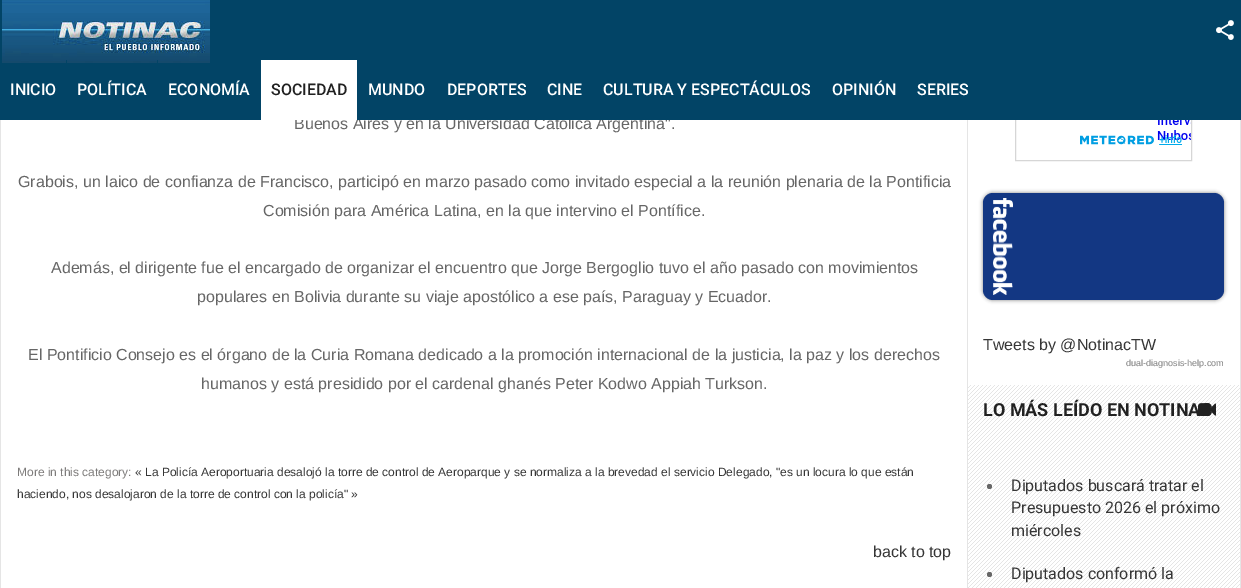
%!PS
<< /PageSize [1241 588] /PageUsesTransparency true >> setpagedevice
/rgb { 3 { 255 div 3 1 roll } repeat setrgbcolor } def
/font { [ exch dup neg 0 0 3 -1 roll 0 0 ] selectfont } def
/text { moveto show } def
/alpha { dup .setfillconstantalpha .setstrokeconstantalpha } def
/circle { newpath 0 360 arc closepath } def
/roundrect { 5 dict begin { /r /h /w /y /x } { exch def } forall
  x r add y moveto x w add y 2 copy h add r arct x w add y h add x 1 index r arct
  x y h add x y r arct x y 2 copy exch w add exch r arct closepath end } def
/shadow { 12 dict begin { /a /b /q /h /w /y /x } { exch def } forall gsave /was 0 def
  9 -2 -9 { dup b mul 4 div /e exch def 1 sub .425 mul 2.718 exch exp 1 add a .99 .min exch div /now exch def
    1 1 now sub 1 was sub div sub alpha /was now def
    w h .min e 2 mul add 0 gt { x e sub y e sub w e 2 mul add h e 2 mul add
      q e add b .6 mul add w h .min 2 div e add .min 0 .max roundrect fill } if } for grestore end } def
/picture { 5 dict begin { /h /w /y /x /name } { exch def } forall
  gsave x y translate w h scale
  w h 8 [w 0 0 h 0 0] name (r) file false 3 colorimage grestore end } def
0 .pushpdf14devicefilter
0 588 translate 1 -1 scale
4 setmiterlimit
255 255 255 rgb
0 0 1241 588 rectfill
229 229 229 rgb
967 120 1 468 rectfill
1240 120 1 468 rectfill
0 120 1 468 rectfill
214 214 214 rgb
1015.5 -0.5 176 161 rectstroke
(img_03.rgb) 1021 120 170 25 picture
0 0 0 rgb
983 193 241 107 10 2 0.5 shadow
19 55 131 rgb
983 193 241 107 10 roundrect fill
(img_04.rgb) 993 198 20 97 picture
(img_05.rgb) 968 385 272 203 picture
102 102 102 rgb
989.5 486.5 2.5 circle fill
989.5 574.5 2.5 circle fill
/LiberationSans-Regular 16 font
(Buenos Aires y en la Universidad Católica Argentina".) 294 129 text
2 68 102 rgb
0 0 1241 120 rectfill
/Roboto-Medium 16 font
255 255 255 rgb
(SERIES) 917 95 text
(OPINIÓN) 832 95 text
(CULTURA Y ESPECTÁCULOS) 603 95 text
(CINE) 547 95 text
(DEPORTES) 447 95 text
(MUNDO) 368 95 text
261 60 96 60 rectfill
33 33 33 rgb
(SOCIEDAD) 271 95 text
255 255 255 rgb
(ECONOMÍA) 168 95 text
(POLÍTICA) 77 95 text
(img_01.rgb) 2 0 208 63 picture
2 68 102 rgb
157 60 1 3 rectfill
255 255 255 rgb
(INICIO) 10 95 text
2 68 102 rgb
66 60 1 3 rectfill
(img_02.rgb) 1216 20 18 20 picture
/LiberationSans-Regular 16 font
102 102 102 rgb
(Grabois, un laico de confianza de Francisco, participó en marzo pasado como invitado especial a la reunión plenaria de la Pontificia) 18 187 text
(Comisión para América Latina, en la que intervino el Pontífice.) 263 216 text
(Además, el dirigente fue el encargado de organizar el encuentro que Jorge Bergoglio tuvo el año pasado con movimientos) 51 273 text
(populares en Bolivia durante su viaje apostólico a ese país, Paraguay y Ecuador.) 197 302 text
(El Pontificio Consejo es el órgano de la Curia Romana dedicado a la promoción internacional de la justicia, la paz y los derechos) 28 360 text
(humanos y está presidido por el cardenal ghanés Peter Kodwo Appiah Turkson.) 201 389 text
/LiberationSans-Regular 12 font
125 123 122 rgb
(More in this category:) 17 476 text
54 54 54 rgb
(« La Policía Aeroportuaria desalojó la torre de control de Aeroparque y se normaliza a la brevedad el servicio Delegado, "es un locura lo que están) 135 476 text
(haciendo, nos desalojaron de la torre de control con la policía" ») 17 498 text
/LiberationSans-Regular 16 font
(back to top) 873 557 text
(Tweets by @NotinacTW) 983 350 text
/LiberationSans-Regular 9 font
128 128 128 rgb
(dual-diagnosis-help.com) 1126 366 text
/Roboto-Bold 18 font
33 33 33 rgb
(LO MÁS LEÍDO EN NOTINA) 983 416 text
(img_06.rgb) 1198 403 18 13 picture
/Roboto-Regular 16 font
54 54 54 rgb
(Diputados buscará tratar el) 1011 491 text
(Presupuesto 2026 el próximo) 1011 513 text
(miércoles) 1011 536 text
(Diputados conformó la) 1011 579 text
.poppdf14devicefilter showpage
